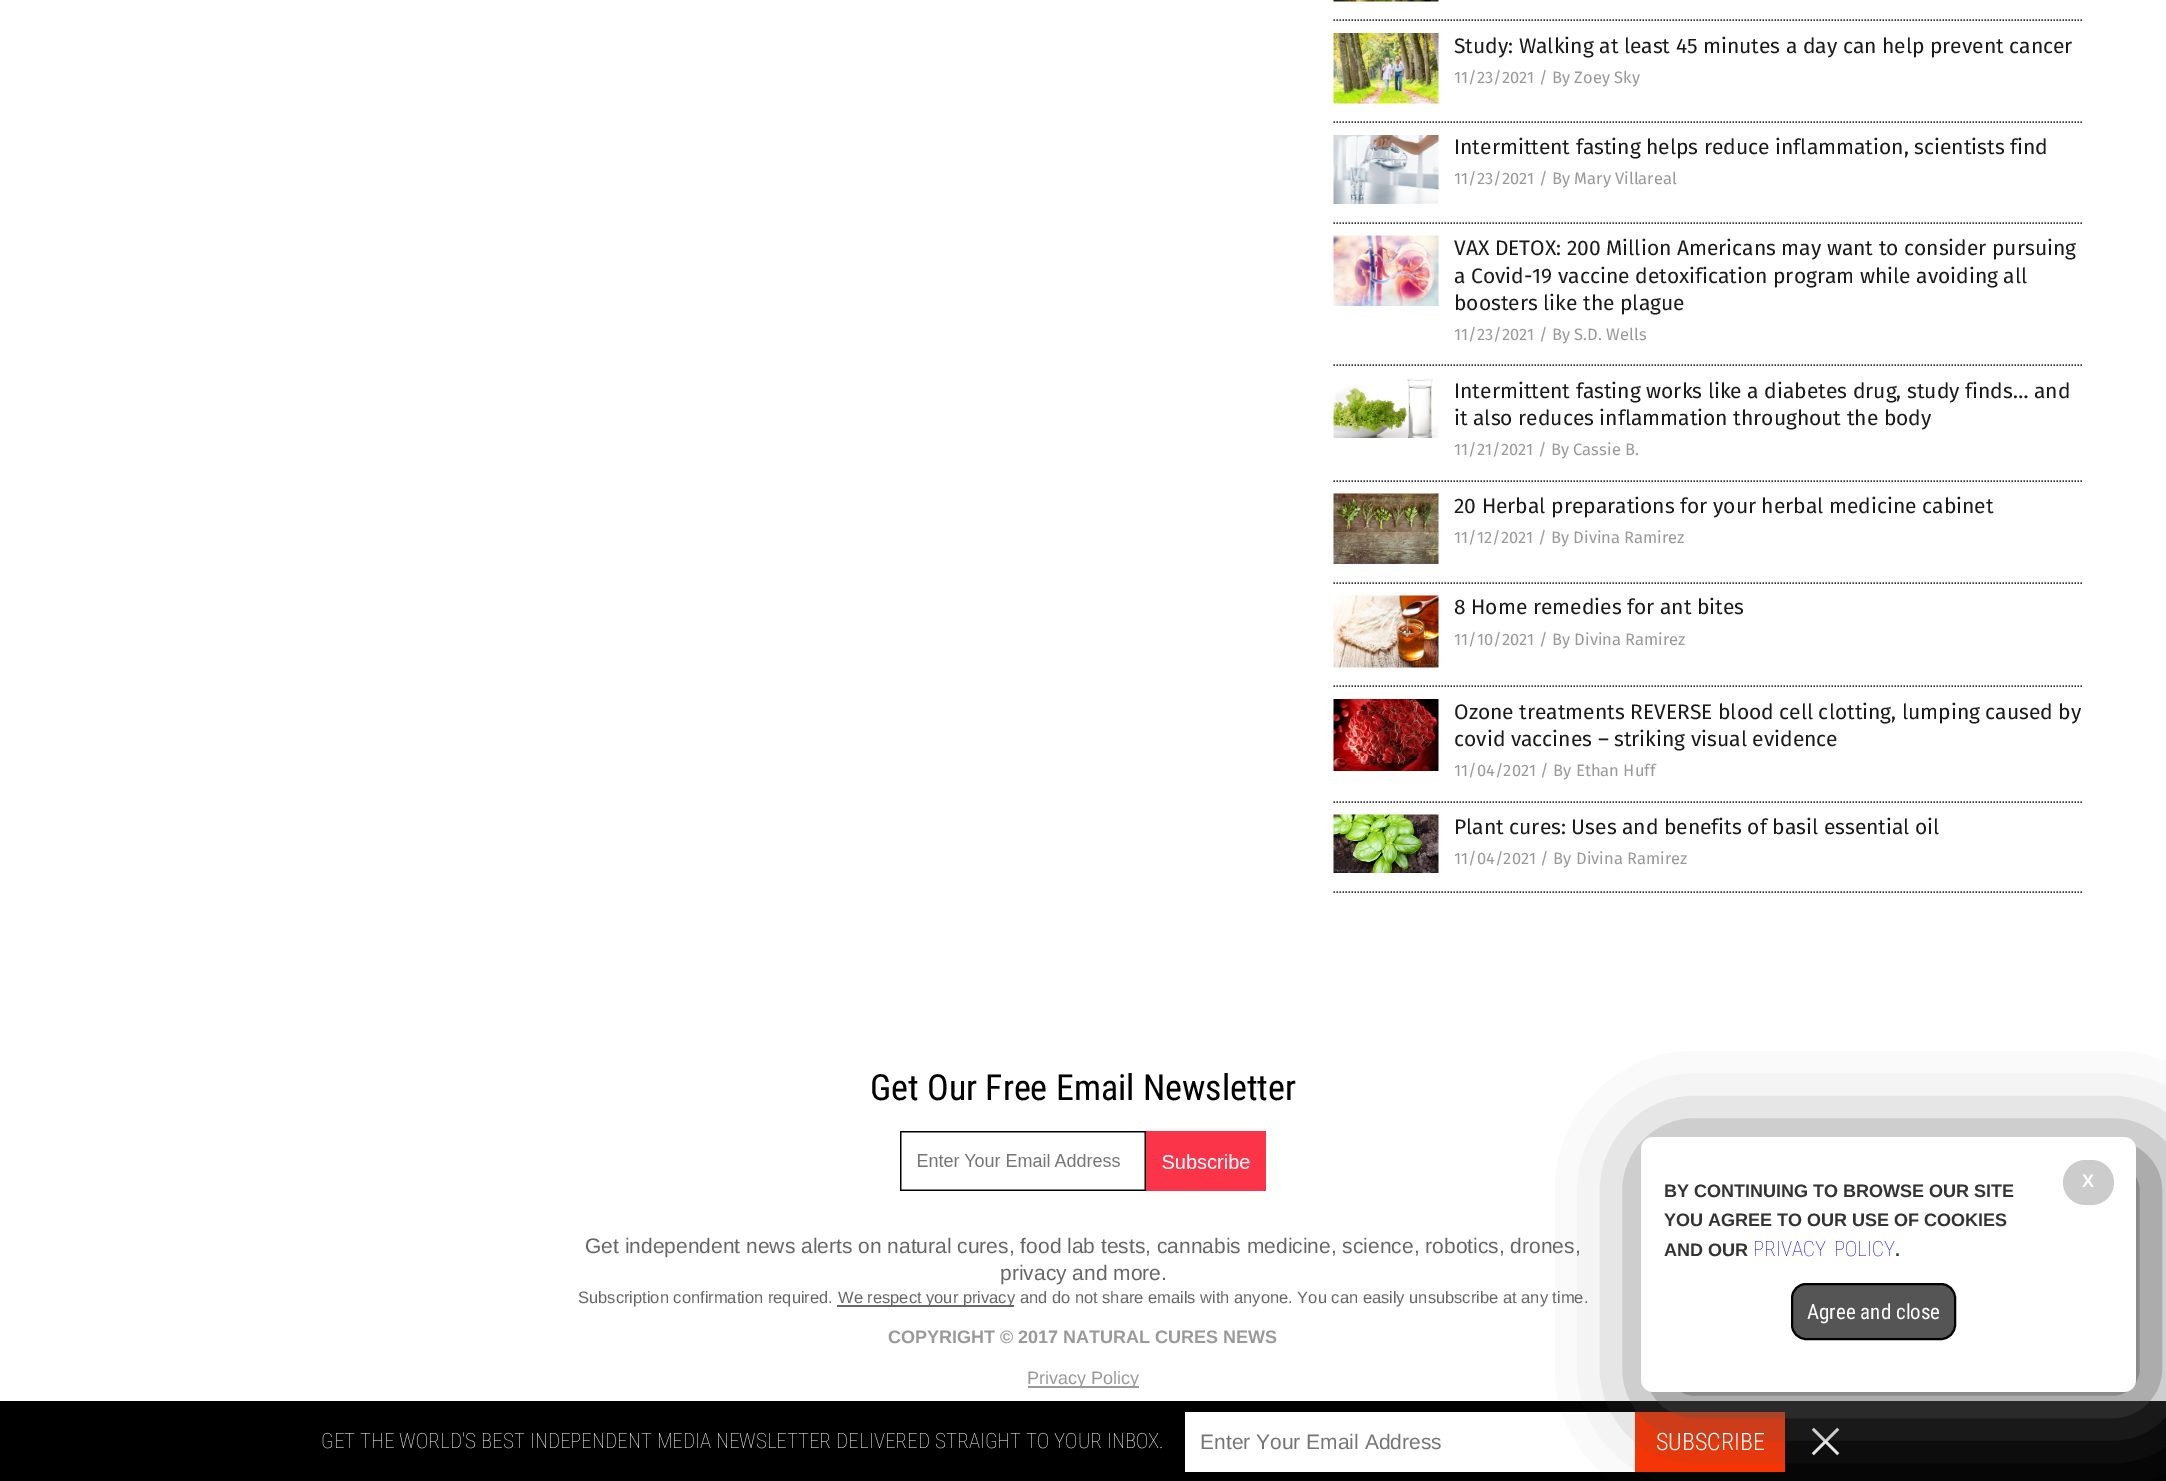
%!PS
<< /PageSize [2166 1481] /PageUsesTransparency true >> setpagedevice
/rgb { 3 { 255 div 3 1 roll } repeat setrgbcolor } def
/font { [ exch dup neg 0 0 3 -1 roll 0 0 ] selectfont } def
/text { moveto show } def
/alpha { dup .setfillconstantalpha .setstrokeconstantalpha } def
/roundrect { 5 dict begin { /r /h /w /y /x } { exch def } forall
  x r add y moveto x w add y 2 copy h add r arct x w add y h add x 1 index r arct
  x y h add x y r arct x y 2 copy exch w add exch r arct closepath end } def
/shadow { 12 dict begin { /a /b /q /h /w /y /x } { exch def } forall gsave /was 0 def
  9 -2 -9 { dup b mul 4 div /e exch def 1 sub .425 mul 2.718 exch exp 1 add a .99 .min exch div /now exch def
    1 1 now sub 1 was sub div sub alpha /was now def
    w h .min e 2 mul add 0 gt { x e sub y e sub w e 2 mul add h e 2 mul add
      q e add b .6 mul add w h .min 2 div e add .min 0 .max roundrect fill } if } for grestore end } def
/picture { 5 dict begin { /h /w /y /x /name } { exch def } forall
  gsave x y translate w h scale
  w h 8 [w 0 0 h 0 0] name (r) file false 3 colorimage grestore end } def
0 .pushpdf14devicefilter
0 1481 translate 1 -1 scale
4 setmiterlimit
255 255 255 rgb
0 0 2166 1481 rectfill
52 52 52 rgb
1.5 setlinewidth
[1.5 1.5] 0 setdash
1333.5 20 moveto 750 0 rlineto stroke
(img_01.rgb) 1333 0 106 2 picture
1333.5 122 moveto 750 0 rlineto stroke
(img_02.rgb) 1333 33 106 71 picture
1333.5 223 moveto 750 0 rlineto stroke
(img_03.rgb) 1333 135 106 69 picture
1333.5 365 moveto 750 0 rlineto stroke
(img_04.rgb) 1333 235 106 71 picture
1333.5 481 moveto 750 0 rlineto stroke
(img_05.rgb) 1333 378 106 60 picture
1333.5 583 moveto 750 0 rlineto stroke
(img_06.rgb) 1333 493 106 71 picture
1333.5 686 moveto 750 0 rlineto stroke
(img_07.rgb) 1333 595 106 73 picture
1333.5 802 moveto 750 0 rlineto stroke
(img_08.rgb) 1333 699 106 72 picture
1333.5 892 moveto 750 0 rlineto stroke
(img_09.rgb) 1333 814 106 59 picture
(img_10.rgb) 900 1131 366 60 picture
102 102 102 rgb
837 1305 177 2 rectfill
153 153 153 rgb
1028 1386 111 2 rectfill
0 0 0 rgb
0 1401 2166 80 rectfill
255 255 255 rgb
1185 1412 450 60 rectfill
255 51 0 rgb
1635 1412 150 60 rectfill
(img_11.rgb) 1811 1427 29 29 picture
gsave
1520 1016 moveto 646 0 rlineto 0 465 rlineto -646 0 rlineto closepath 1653 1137 moveto 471 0 rlineto 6.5 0 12 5.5 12 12 rcurveto 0 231 rlineto 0 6.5 -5.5 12 -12 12 rcurveto -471 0 rlineto -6.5 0 -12 -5.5 -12 -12 rcurveto 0 -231 rlineto 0 -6.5 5.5 -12 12 -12 rcurveto closepath eoclip newpath
85 85 85 rgb
1656 1152 495 255 12 45 1 shadow
grestore
0.9 alpha
255 255 255 rgb
1641 1137 495 255 12 roundrect fill
1 alpha
204 204 204 rgb
2063 1160 51 45 22.5 roundrect fill
85 85 85 rgb
1792 1284 163 55 14 roundrect gsave fill grestore
0 0 0 rgb
2 setlinewidth
[] 0 setdash
stroke
/FiraSans-Regular 21 font
26 26 26 rgb
(Study: Walking at least 45 minutes a day can help prevent cancer) 1454 53 text
/FiraSans-Regular 16.5 font
153 153 153 rgb
(11/23/2021 / By Zoey Sky) 1454 83 text
/FiraSans-Regular 21 font
26 26 26 rgb
(Intermittent fasting helps reduce inflammation, scientists find) 1454 154 text
/FiraSans-Regular 16.5 font
153 153 153 rgb
(11/23/2021 / By Mary Villareal) 1454 184 text
/FiraSans-Regular 21 font
26 26 26 rgb
(VAX DETOX: 200 Million Americans may want to consider pursuing) 1454 255 text
(a Covid-19 vaccine detoxification program while avoiding all) 1454 283 text
(boosters like the plague) 1454 310 text
/FiraSans-Regular 16.5 font
153 153 153 rgb
(11/23/2021 / By S.D. Wells) 1454 340 text
/FiraSans-Regular 21 font
26 26 26 rgb
(Intermittent fasting works like a diabetes drug, study finds… and) 1454 398 text
(it also reduces inflammation throughout the body) 1454 425 text
/FiraSans-Regular 16.5 font
153 153 153 rgb
(11/21/2021 / By Cassie B.) 1454 455 text
/FiraSans-Regular 21 font
26 26 26 rgb
(20 Herbal preparations for your herbal medicine cabinet) 1454 513 text
/FiraSans-Regular 16.5 font
153 153 153 rgb
(11/12/2021 / By Divina Ramirez) 1454 543 text
/FiraSans-Regular 21 font
26 26 26 rgb
(8 Home remedies for ant bites) 1454 614 text
/FiraSans-Regular 16.5 font
153 153 153 rgb
(11/10/2021 / By Divina Ramirez) 1454 645 text
/FiraSans-Regular 21 font
26 26 26 rgb
(Ozone treatments REVERSE blood cell clotting, lumping caused by) 1454 719 text
(covid vaccines – striking visual evidence) 1454 746 text
/FiraSans-Regular 16.5 font
153 153 153 rgb
(11/04/2021 / By Ethan Huff) 1454 776 text
/FiraSans-Regular 21 font
26 26 26 rgb
(Plant cures: Uses and benefits of basil essential oil) 1454 834 text
/FiraSans-Regular 16.5 font
153 153 153 rgb
(11/04/2021 / By Divina Ramirez) 1454 864 text
/RobotoCondensed-Regular 36 font
0 0 0 rgb
(Get Our Free Email Newsletter) 870 1100 text
/LiberationSans-Regular 21 font
102 102 102 rgb
(Get independent news alerts on natural cures, food lab tests, cannabis medicine, science, robotics, drones,) 585 1253 text
(privacy and more.) 1000 1280 text
/LiberationSans-Regular 16.5 font
(Subscription confirmation required.) 578 1303 text
(We respect your privacy and do not share emails with anyone. You can easily unsubscribe at any time.) 838 1303 text
/LiberationSans-Bold 18 font
153 153 153 rgb
(COPYRIGHT © 2017 NATURAL CURES NEWS) 888 1343 text
/LiberationSans-Regular 18 font
(Privacy Policy) 1027 1384 text
/LiberationSans-Bold 18 font
255 255 255 rgb
(X) 2082 1187 text
51 51 51 rgb
(BY CONTINUING TO BROWSE OUR SITE) 1664 1197 text
(YOU AGREE TO OUR USE OF COOKIES) 1664 1226 text
(AND OUR) 1664 1256 text
/RobotoCondensed-Thin 21 font
0 0 255 rgb
1753 1256 moveto 3 0 32 (PRIVACY POLICY) widthshow
/LiberationSans-Bold 18 font
51 51 51 rgb
(.) 1895 1256 text
/RobotoCondensed-Regular 21 font
255 255 255 rgb
(Agree and close) 1807 1319 text
/RobotoCondensed-Thin 21 font
321 1448 moveto 0.25 0 32 (GET THE WORLD'S BEST INDEPENDENT MEDIA NEWSLETTER DELIVERED STRAIGHT TO YOUR INBOX.) widthshow
/LiberationSans-Regular 21 font
117 117 117 rgb
(Enter Your Email Address) 1200 1449 text
/RobotoCondensed-Light 24 font
255 255 255 rgb
(SUBSCRIBE) 1656 1450 text
.poppdf14devicefilter showpage
